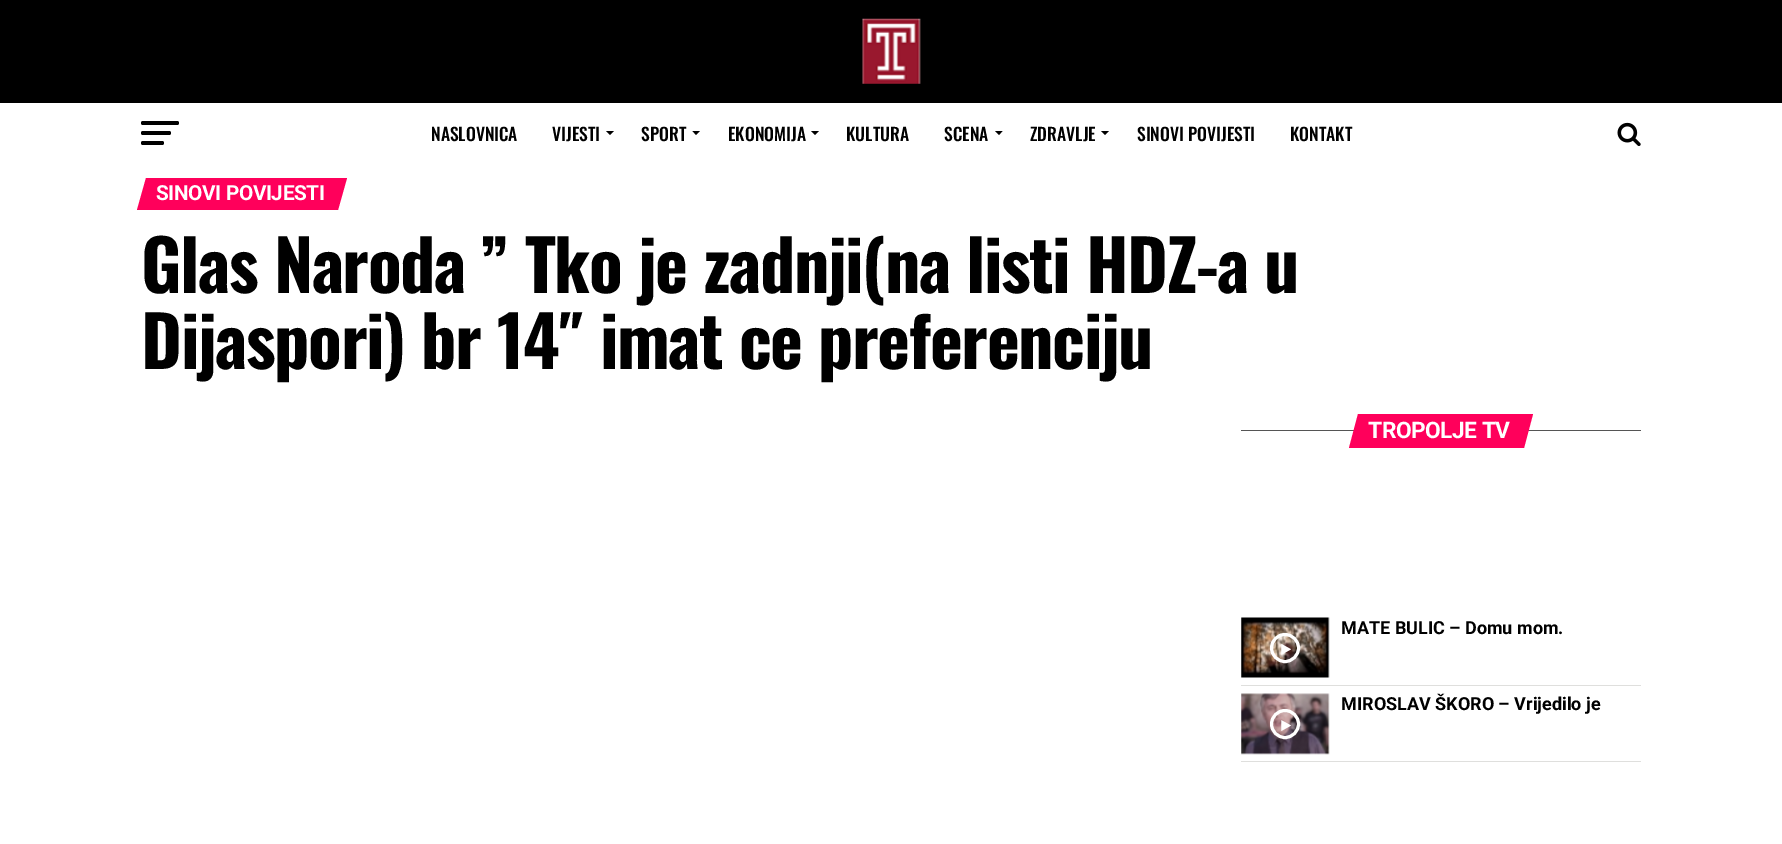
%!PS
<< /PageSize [1782 844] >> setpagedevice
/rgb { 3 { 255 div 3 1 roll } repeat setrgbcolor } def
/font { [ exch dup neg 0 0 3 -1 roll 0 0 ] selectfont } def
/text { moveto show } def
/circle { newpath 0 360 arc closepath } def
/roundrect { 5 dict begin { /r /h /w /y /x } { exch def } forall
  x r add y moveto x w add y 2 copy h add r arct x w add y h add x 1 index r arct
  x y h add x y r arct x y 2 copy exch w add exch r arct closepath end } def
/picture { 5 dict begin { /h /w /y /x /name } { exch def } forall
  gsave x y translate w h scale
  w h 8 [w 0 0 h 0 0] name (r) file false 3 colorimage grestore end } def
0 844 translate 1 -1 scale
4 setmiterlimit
255 255 255 rgb
0 0 1782 844 rectfill
0 0 0 rgb
0 0 1782 103 rectfill
(img_01.rgb) 862 18 59 66 picture
141 121 38 4 2 roundrect fill
141 131 30 4 2 roundrect fill
141 141 23 4 2 roundrect fill
606 131 moveto 8 0 rlineto -4 4 rlineto closepath fill
692.5 131 moveto 7.5 0 rlineto -4 4 rlineto closepath fill
811 131 moveto 8 0 rlineto -4 4 rlineto closepath fill
995 131 moveto 7.5 0 rlineto -3.5 4 rlineto closepath fill
1101 131 moveto 8 0 rlineto -4 4 rlineto closepath fill
(img_02.rgb) 1617 122 24 24 picture
255 0 91 rgb
146 178 moveto 201 0 rlineto -9 32 rlineto -201 0 rlineto closepath fill
85 85 85 rgb
1241 430 400 1 rectfill
255 0 91 rgb
1358 414 moveto 175 0 rlineto -9 34 rlineto -175 0 rlineto closepath fill
223 223 221 rgb
1241 685 400 1 rectfill
(img_03.rgb) 1241 617 89 61 picture
255 255 255 rgb
3 setlinewidth
1285 648 13.5 circle stroke
(img_04.rgb) 1281 644 10 11 picture
223 223 221 rgb
1241 761 400 1 rectfill
(img_05.rgb) 1241 693 89 62 picture
255 255 255 rgb
1285 724 13.5 circle stroke
(img_06.rgb) 1281 720 10 11 picture
/Oswald-Medium 17.5 font
0 0 0 rgb
(NASLOVNICA) 431 141 text
(VIJESTI) 552 141 text
(SPORT) 641 141 text
(EKONOMIJA) 728 141 text
(KULTURA) 846 141 text
(SCENA) 944 141 text
(ZDRAVLJE) 1030 141 text
(SINOVI POVIJESTI) 1137 141 text
(KONTAKT) 1290 141 text
/Roboto-Bold 20.75 font
255 255 255 rgb
156 200 moveto -0.4 0 (SINOVI POVIJESTI) ashow
/Oswald-Bold 70 font
0 0 0 rgb
141 293 moveto -1.4 0 (Glas Naroda ” Tko je zadnji\(na listi HDZ-a u) ashow
141 369 moveto -1.4 0 (Dijaspori\) br 14″ imat ce preferenciju) ashow
/Roboto-Bold 22.75 font
255 255 255 rgb
1368 438 moveto -0.5 0 (TROPOLJE TV) ashow
/Roboto-Bold 18 font
0 0 0 rgb
(MATE BULIC – Domu mom.) 1341 634 text
(MIROSLAV ŠKORO – Vrijedilo je) 1341 710 text
showpage
